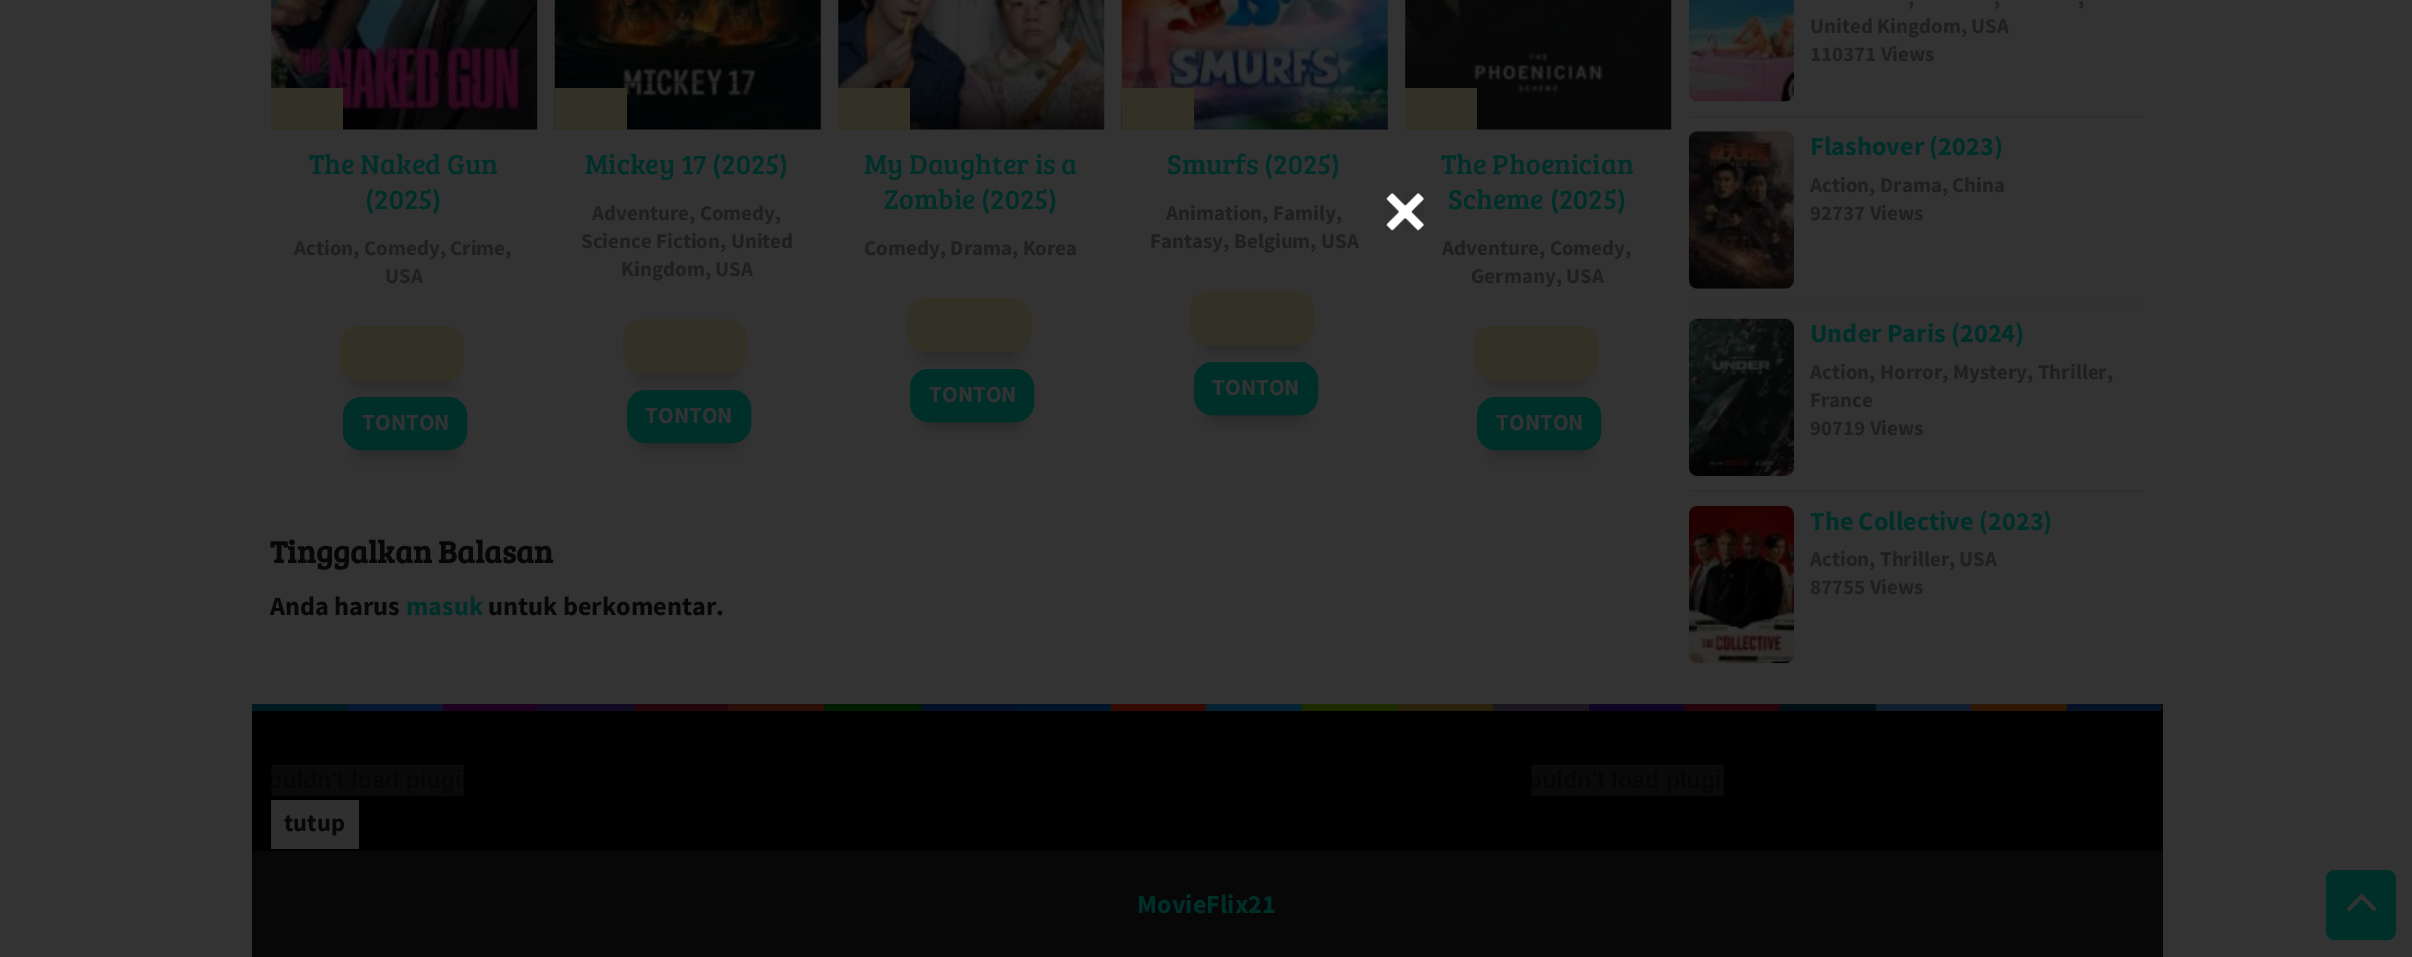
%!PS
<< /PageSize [2412 957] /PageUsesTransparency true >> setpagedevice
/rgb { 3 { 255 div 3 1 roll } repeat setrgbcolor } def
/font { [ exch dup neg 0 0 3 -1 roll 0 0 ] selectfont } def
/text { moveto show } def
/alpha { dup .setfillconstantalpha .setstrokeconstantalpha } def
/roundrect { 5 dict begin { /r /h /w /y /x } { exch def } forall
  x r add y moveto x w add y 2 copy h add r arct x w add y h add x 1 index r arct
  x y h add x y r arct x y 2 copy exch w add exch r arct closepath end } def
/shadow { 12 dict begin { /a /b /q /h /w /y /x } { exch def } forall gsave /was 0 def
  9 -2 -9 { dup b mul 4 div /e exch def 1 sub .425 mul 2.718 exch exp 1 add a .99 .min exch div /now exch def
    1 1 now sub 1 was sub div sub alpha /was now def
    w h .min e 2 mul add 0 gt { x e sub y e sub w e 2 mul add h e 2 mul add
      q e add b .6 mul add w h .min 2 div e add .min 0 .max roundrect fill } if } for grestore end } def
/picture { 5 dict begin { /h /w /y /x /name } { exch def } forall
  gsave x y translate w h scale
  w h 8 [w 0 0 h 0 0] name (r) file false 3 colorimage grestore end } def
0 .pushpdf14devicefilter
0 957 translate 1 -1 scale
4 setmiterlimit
51 51 51 rgb
0 0 2412 957 rectfill
(img_01.rgb) 271 0 267 130 picture
51 49 37 rgb
271 88 72 42 rectfill
0 0 0 rgb
357 364 89 19 0 9 0.3 shadow
51 49 37 rgb
341 327 122 52 17 roundrect gsave fill grestore
2 setlinewidth
stroke
0 0 0 rgb
361 436 89 17 0 9 0.3 shadow
0 47 42 rgb
344 398 122 51 17 roundrect gsave fill grestore
stroke
(img_02.rgb) 554 0 267 130 picture
51 49 37 rgb
555 88 72 42 rectfill
0 0 0 rgb
641 357 89 19 0 9 0.3 shadow
51 49 37 rgb
624 320 122 52 17 roundrect gsave fill grestore
stroke
0 0 0 rgb
644 429 89 17 0 9 0.3 shadow
0 47 42 rgb
628 391 122 51 17 roundrect gsave fill grestore
stroke
(img_03.rgb) 838 0 267 130 picture
51 49 37 rgb
838 88 72 42 rectfill
0 0 0 rgb
924 336 89 19 0 9 0.3 shadow
51 49 37 rgb
908 299 122 52 17 roundrect gsave fill grestore
stroke
0 0 0 rgb
928 408 89 17 0 9 0.3 shadow
0 47 42 rgb
911 370 122 51 17 roundrect gsave fill grestore
stroke
(img_04.rgb) 1121 0 267 130 picture
51 49 37 rgb
1122 88 72 42 rectfill
0 0 0 rgb
1208 329 89 19 0 9 0.3 shadow
51 49 37 rgb
1191 292 122 52 17 roundrect gsave fill grestore
stroke
0 0 0 rgb
1211 401 89 17 0 9 0.3 shadow
0 47 42 rgb
1195 363 122 51 17 roundrect gsave fill grestore
stroke
(img_05.rgb) 1405 0 267 130 picture
51 49 37 rgb
1405 88 72 42 rectfill
0 0 0 rgb
1491 364 89 19 0 9 0.3 shadow
51 49 37 rgb
1475 327 122 52 17 roundrect gsave fill grestore
stroke
0 0 0 rgb
1495 436 89 17 0 9 0.3 shadow
0 47 42 rgb
1478 398 122 51 17 roundrect gsave fill grestore
stroke
48 48 48 rgb
1689 116 455 2 rectfill
(img_06.rgb) 1689 0 105 102 picture
1689 303 455 2 rectfill
(img_07.rgb) 1689 131 105 158 picture
1689 490 455 2 rectfill
(img_08.rgb) 1689 318 105 158 picture
(img_09.rgb) 1689 505 105 159 picture
10 10 10 rgb
2161 704 2 7 rectfill
0 26 31 rgb
252 704 95 7 rectfill
8 23 47 rgb
347 704 96 7 rectfill
28 0 30 rgb
443 704 94 7 rectfill
16 10 34 rgb
537 704 97 7 rectfill
34 5 12 rgb
634 704 94 7 rectfill
42 14 8 rgb
728 704 96 7 rectfill
0 28 0 rgb
824 704 97 7 rectfill
2 15 36 rgb
921 704 94 7 rectfill
0 21 39 rgb
1015 704 96 7 rectfill
51 9 4 rgb
1111 704 95 7 rectfill
6 35 51 rgb
1206 704 96 7 rectfill
29 42 0 rgb
1302 704 96 7 rectfill
41 33 11 rgb
1398 704 95 7 rectfill
25 22 30 rgb
1493 704 96 7 rectfill
14 5 36 rgb
1589 704 95 7 rectfill
35 3 12 rgb
1684 704 96 7 rectfill
0 15 19 rgb
1780 704 96 7 rectfill
17 31 45 rgb
1876 704 95 7 rectfill
46 22 5 rgb
1971 704 96 7 rectfill
5 18 37 rgb
2067 704 94 7 rectfill
0 0 0 rgb
252 711 1911 140 rectfill
(img_10.rgb) 271 764 193 33 picture
(img_10.rgb) 1531 764 193 33 picture
7 7 7 rgb
252 851 1911 106 rectfill
48 48 48 rgb
271 800 88 49 rectfill
(img_11.rgb) 1386 193 38 38 picture
0 47 42 rgb
2326 870 70 70 9 roundrect fill
(img_12.rgb) 2347 893 30 19 picture
/BreeSerif-Regular 28 font
(The Naked Gun) 309 174 text
(\(2025\)) 365 209 text
/SourceSansPro-Bold 21 font
31 31 31 rgb
(Action, Comedy, Crime,) 294 255 text
(USA) 385 283 text
/SourceSansPro-Bold 23 font
51 51 51 rgb
(TONTON) 362 430 text
/BreeSerif-Regular 28 font
0 47 42 rgb
(Mickey 17 \(2025\)) 585 174 text
/SourceSansPro-Bold 21 font
31 31 31 rgb
(Adventure, Comedy,) 592 220 text
(Science Fiction, United) 581 248 text
(Kingdom, USA) 621 276 text
/SourceSansPro-Bold 23 font
51 51 51 rgb
(TONTON) 645 423 text
/BreeSerif-Regular 28 font
0 47 42 rgb
(My Daughter is a) 864 174 text
(Zombie \(2025\)) 884 209 text
/SourceSansPro-Bold 21 font
31 31 31 rgb
(Comedy, Drama, Korea) 864 255 text
/SourceSansPro-Bold 23 font
51 51 51 rgb
(TONTON) 929 402 text
/BreeSerif-Regular 28 font
0 47 42 rgb
(Smurfs \(2025\)) 1167 174 text
/SourceSansPro-Bold 21 font
31 31 31 rgb
(Animation, Family,) 1166 220 text
(Fantasy, Belgium, USA) 1150 248 text
/SourceSansPro-Bold 23 font
51 51 51 rgb
(TONTON) 1212 395 text
/BreeSerif-Regular 28 font
0 47 42 rgb
(The Phoenician) 1441 174 text
(Scheme \(2025\)) 1448 209 text
/SourceSansPro-Bold 21 font
31 31 31 rgb
(Adventure, Comedy,) 1442 255 text
(Germany, USA) 1471 283 text
/SourceSansPro-Bold 23 font
51 51 51 rgb
(TONTON) 1496 430 text
/BreeSerif-Bold 31.5 font
7 7 7 rgb
(Tinggalkan Balasan) 270 563 text
/SourceSansPro-Bold 26.25 font
(Anda harus) 270 615 text
0 47 42 rgb
(masuk) 406 615 text
7 7 7 rgb
(untuk berkomentar.) 488 615 text
/SourceSansPro-Bold 21 font
31 31 31 rgb
(,) 1908 5 text
(,) 1994 5 text
(,) 2078 5 text
(United Kingdom, USA) 1810 33 text
(110371 Views) 1810 61 text
/SourceSansPro-Bold 26.25 font
0 47 42 rgb
(Flashover \(2023\)) 1810 155 text
/SourceSansPro-Bold 21 font
31 31 31 rgb
(Action, Drama, China) 1810 192 text
(92737 Views) 1810 220 text
/SourceSansPro-Bold 26.25 font
0 47 42 rgb
(Under Paris \(2024\)) 1810 342 text
/SourceSansPro-Bold 21 font
31 31 31 rgb
(Action, Horror, Mystery, Thriller,) 1810 379 text
(France) 1810 407 text
(90719 Views) 1810 435 text
/SourceSansPro-Bold 26.25 font
0 47 42 rgb
(The Collective \(2023\)) 1810 530 text
/SourceSansPro-Bold 21 font
31 31 31 rgb
(Action, Thriller, USA) 1810 566 text
(87755 Views) 1810 594 text
/SourceSansPro-Bold 24.5 font
7 7 7 rgb
(tutup) 284 831 text
/SourceSansPro-Bold 26.25 font
0 47 42 rgb
(MovieFlix21) 1137 913 text
.poppdf14devicefilter showpage
